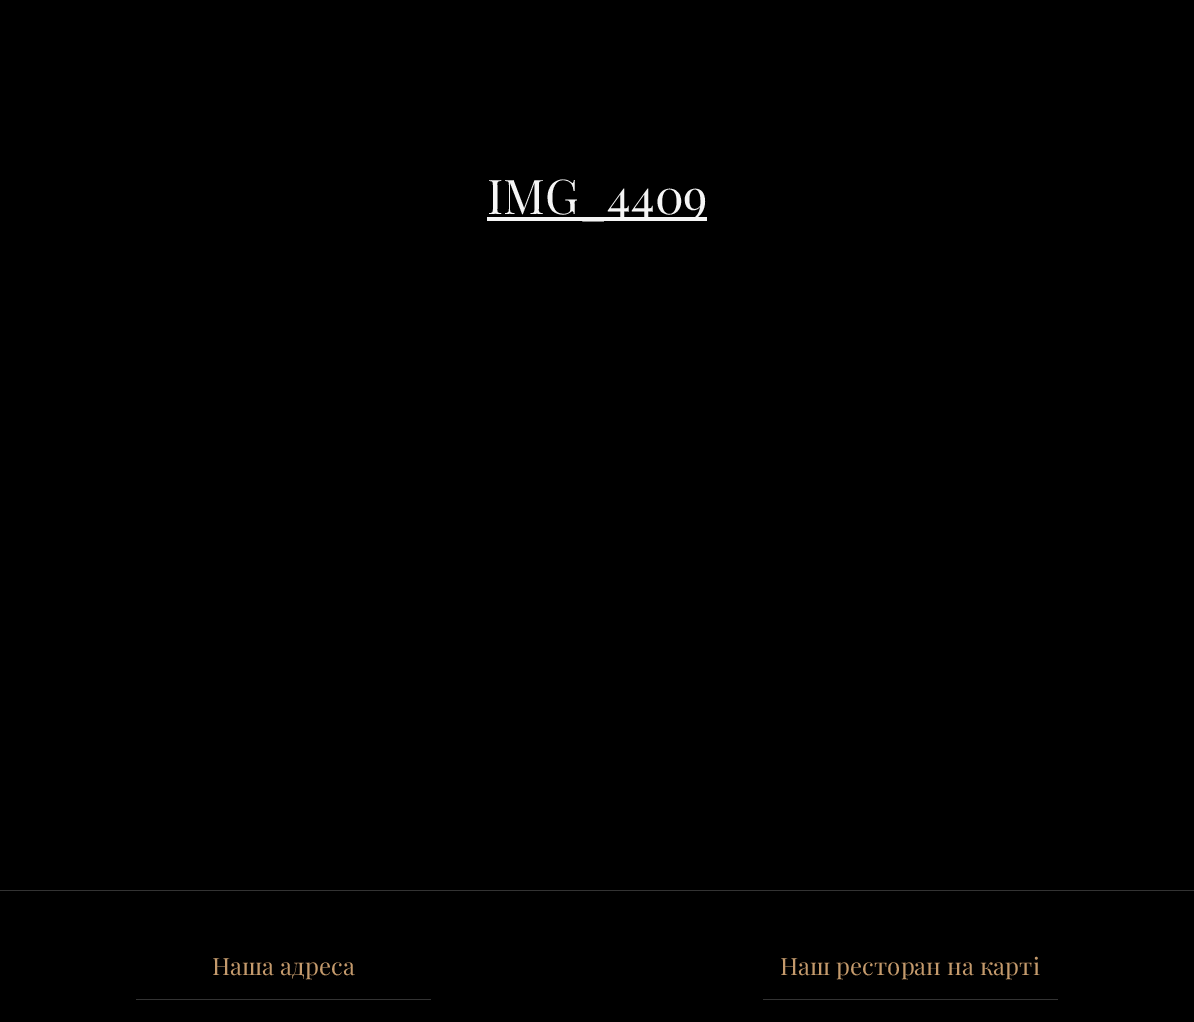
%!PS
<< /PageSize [1194 1022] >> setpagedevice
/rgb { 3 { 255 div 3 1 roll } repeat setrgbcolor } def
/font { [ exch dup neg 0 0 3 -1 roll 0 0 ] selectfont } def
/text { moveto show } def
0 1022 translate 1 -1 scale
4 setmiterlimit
0 0 0 rgb
0 0 1194 1022 rectfill
245 245 245 rgb
487 217 220 4 rectfill
51 51 51 rgb
0 890 1194 1 rectfill
136 999 295 1 rectfill
763 999 295 1 rectfill
/PlayfairDisplay-Regular 48 font
245 245 245 rgb
(IMG_4409) 487 214 text
/PlayfairDisplay-Regular 24 font
196 154 108 rgb
(Наша адреса) 212 975 text
(Наш ресторан на карті) 780 975 text
showpage
